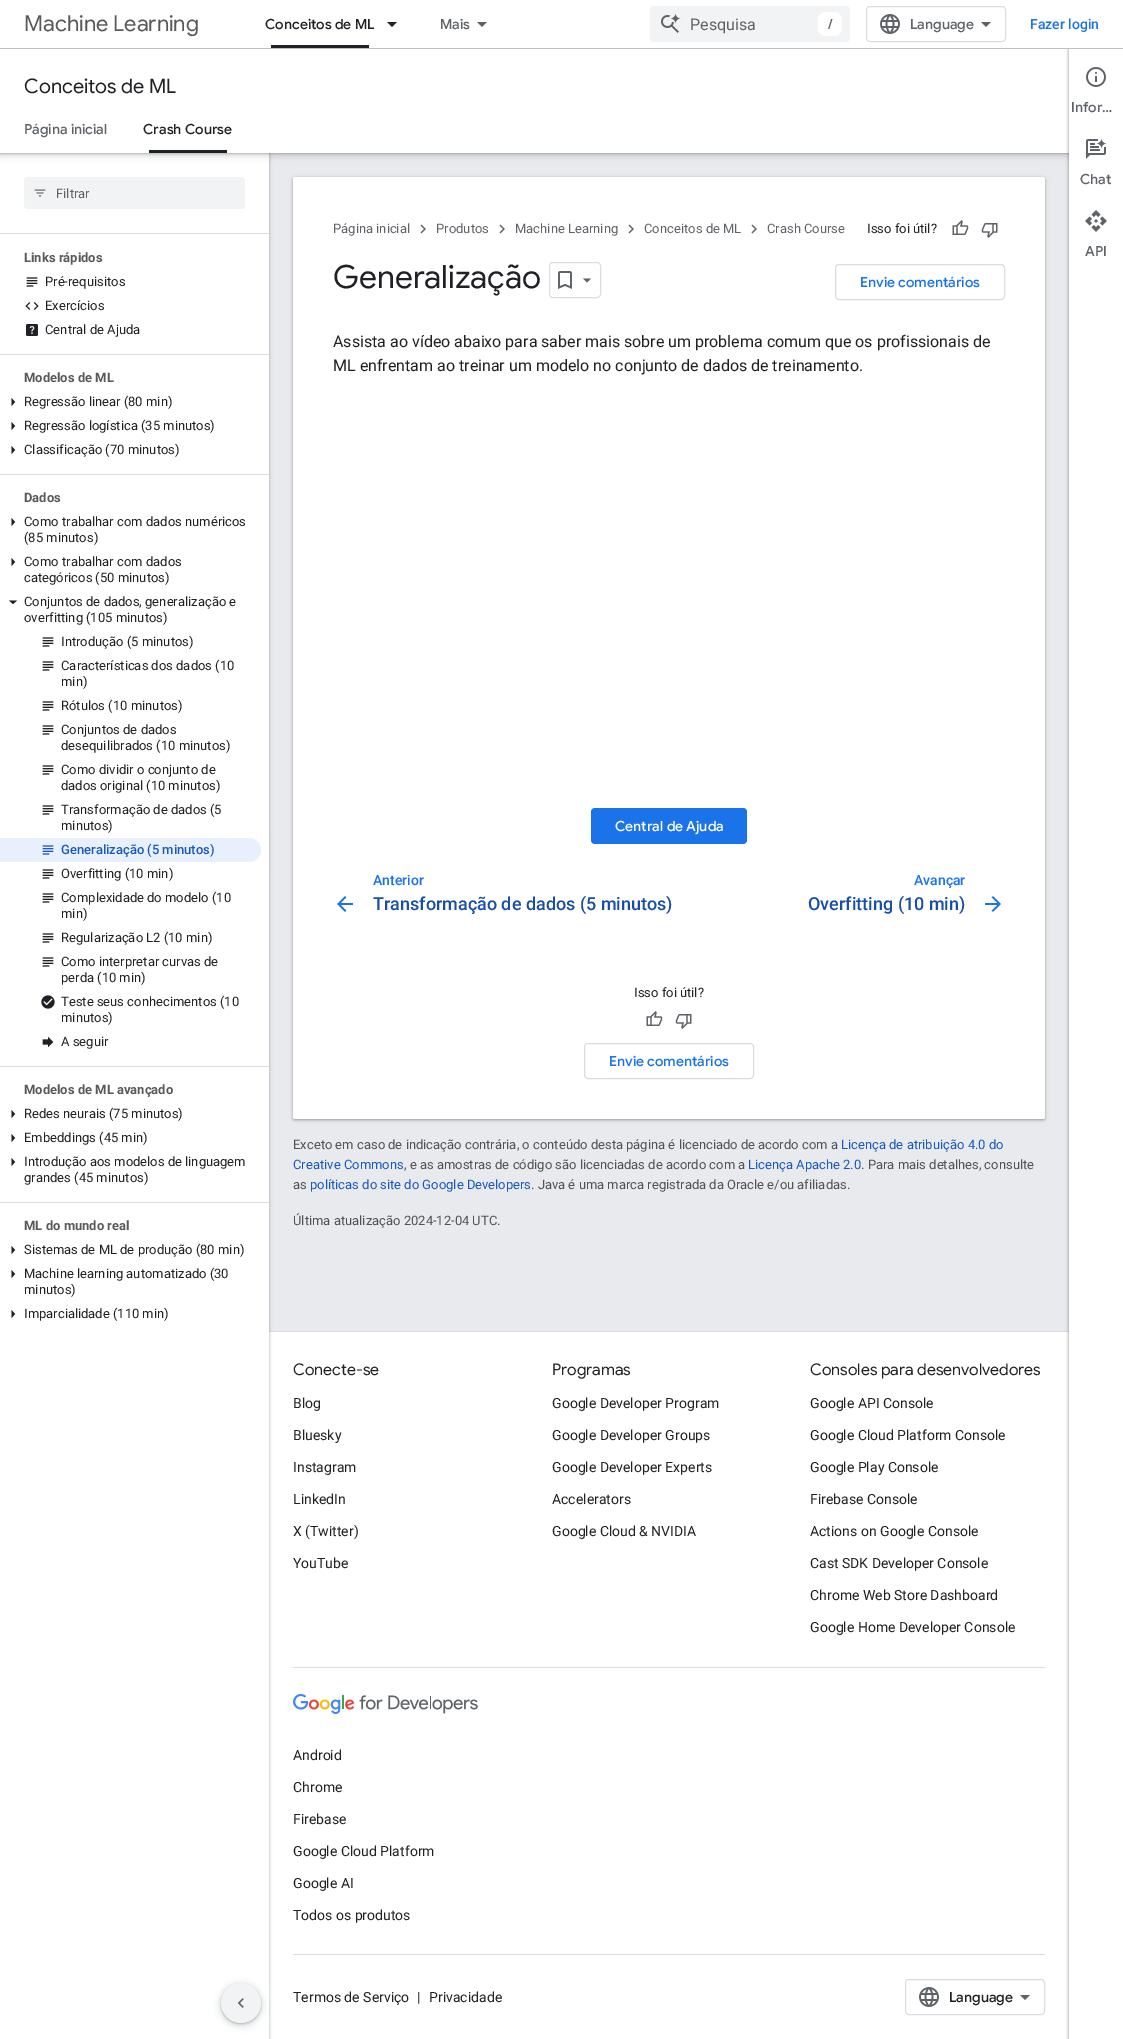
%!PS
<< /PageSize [1123 2039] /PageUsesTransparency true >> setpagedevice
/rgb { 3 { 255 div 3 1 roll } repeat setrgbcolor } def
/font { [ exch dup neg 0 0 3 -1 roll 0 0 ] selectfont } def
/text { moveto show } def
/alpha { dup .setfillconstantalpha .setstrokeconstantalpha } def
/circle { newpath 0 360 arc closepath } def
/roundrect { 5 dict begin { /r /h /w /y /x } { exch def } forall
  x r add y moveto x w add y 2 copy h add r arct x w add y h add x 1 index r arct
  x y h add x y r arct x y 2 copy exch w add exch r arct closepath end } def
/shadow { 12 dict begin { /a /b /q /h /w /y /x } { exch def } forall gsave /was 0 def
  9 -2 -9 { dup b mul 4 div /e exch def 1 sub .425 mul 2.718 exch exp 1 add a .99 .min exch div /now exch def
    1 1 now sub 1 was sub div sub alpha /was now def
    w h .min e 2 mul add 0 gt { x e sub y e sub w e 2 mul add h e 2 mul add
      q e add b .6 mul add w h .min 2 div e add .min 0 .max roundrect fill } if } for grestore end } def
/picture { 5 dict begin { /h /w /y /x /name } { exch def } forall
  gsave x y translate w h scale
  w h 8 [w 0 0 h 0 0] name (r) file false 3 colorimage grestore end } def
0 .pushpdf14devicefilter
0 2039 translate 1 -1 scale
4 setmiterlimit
232 234 237 rgb
0 0 1123 2039 rectfill
218 220 224 rgb
269 1331 800 1 rectfill
255 255 255 rgb
269 1332 800 707 rectfill
60 64 67 rgb
-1 0 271 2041 0 1.5 0.15 shadow
0 1 269 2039 0 1 0.3 shadow
255 255 255 rgb
0 153 269 1886 rectfill
60 64 67 rgb
-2 49 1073 108 0 3 0.15 shadow
0 50 1069 104 0 1 0.3 shadow
255 255 255 rgb
0 49 1069 104 rectfill
0 0 0 rgb
1068 48 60 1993 0 1.5 0.15 shadow
1069 49 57 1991 0 1 0.3 shadow
255 255 255 rgb
0 0 1123 48 rectfill
189 193 198 rgb
0 48 1123 1 rectfill
32 33 36 rgb
271 45 98 3 rectfill
387 22 moveto 10 0 rlineto -5 5 rlineto closepath fill
95 99 104 rgb
477 22 moveto 10 0 rlineto -5 5 rlineto closepath fill
241 243 244 rgb
650 6 200 36 4 roundrect fill
(img_01.rgb) 661 13 20 20 picture
255 255 255 rgb
818 12 24 24 8 roundrect fill
218 220 224 rgb
866.5 6.5 139 35 3.5 roundrect stroke
(img_02.rgb) 880 14 20 20 picture
95 99 104 rgb
986 27 moveto -5 -5 rlineto 10 0 rlineto closepath fill
32 33 36 rgb
149 150 78 3 rectfill
218 220 224 rgb
0 233 269 1 rectfill
241 243 244 rgb
24 177 221 32 4 roundrect fill
(img_03.rgb) 34 189 12 8 picture
(img_04.rgb) 26 277 12 10 picture
(img_05.rgb) 25 302 14 8 picture
(img_06.rgb) 26 324 12 12 picture
218 220 224 rgb
0 354 269 1 rectfill
32 33 36 rgb
11.5 406 moveto 0 -8 rlineto 3.5 4 rlineto closepath fill
11.5 430 moveto 0 -8 rlineto 3.5 4 rlineto closepath fill
11.5 454 moveto 0 -8 rlineto 3.5 4 rlineto closepath fill
218 220 224 rgb
0 474 269 1 rectfill
32 33 36 rgb
11.5 526 moveto 0 -8 rlineto 3.5 4 rlineto closepath fill
11.5 566 moveto 0 -8 rlineto 3.5 4 rlineto closepath fill
9 600.5 moveto 8 0 rlineto -4 3.5 rlineto closepath fill
(img_04.rgb) 42 637 12 10 picture
(img_04.rgb) 42 661 12 10 picture
(img_04.rgb) 42 701 12 10 picture
(img_04.rgb) 42 725 12 10 picture
(img_04.rgb) 42 765 12 10 picture
(img_04.rgb) 42 805 12 10 picture
232 240 254 rgb
0 838 moveto 249 0 rlineto 6.5 0 12 5.5 12 12 rcurveto 0 6.5 -5.5 12 -12 12 rcurveto -249 0 rlineto closepath fill
(img_07.rgb) 42 845 12 10 picture
(img_04.rgb) 42 869 12 10 picture
(img_04.rgb) 42 893 12 10 picture
(img_04.rgb) 42 933 12 10 picture
(img_04.rgb) 42 957 12 10 picture
(img_08.rgb) 41 995 14 14 picture
(img_09.rgb) 42 1036 12 12 picture
218 220 224 rgb
0 1066 269 1 rectfill
32 33 36 rgb
11.5 1118 moveto 0 -8 rlineto 3.5 4 rlineto closepath fill
11.5 1142 moveto 0 -8 rlineto 3.5 4 rlineto closepath fill
11.5 1166 moveto 0 -8 rlineto 3.5 4 rlineto closepath fill
218 220 224 rgb
0 1202 269 1 rectfill
32 33 36 rgb
11.5 1254 moveto 0 -8 rlineto 3.5 4 rlineto closepath fill
11.5 1278 moveto 0 -8 rlineto 3.5 4 rlineto closepath fill
11.5 1318 moveto 0 -8 rlineto 3.5 4 rlineto closepath fill
255 255 255 rgb
1069 49 54 1990 rectfill
(img_10.rgb) 1086 67 20 20 picture
(img_11.rgb) 1086 138 21 21 picture
(img_12.rgb) 1085 210 22 22 picture
60 64 67 rgb
292 177 754 944 3 1.5 0.15 shadow
293 178 752 942 2 1 0.3 shadow
255 255 255 rgb
293 177 752 942 2 roundrect fill
(img_13.rgb) 420 224 6 10 picture
(img_13.rgb) 499 224 6 10 picture
(img_13.rgb) 628 224 6 10 picture
(img_13.rgb) 751 224 6 10 picture
(img_14.rgb) 952 220 17 15 picture
(img_15.rgb) 981 223 17 15 picture
218 220 224 rgb
549.5 262.5 51 35 3.5 roundrect stroke
(img_16.rgb) 558 271 14 18 picture
95 99 104 rgb
583 278.5 moveto 8 0 rlineto -4 4 rlineto closepath fill
218 220 224 rgb
835.5 264.5 169 35 3.5 roundrect stroke
26 115 232 rgb
591 808 156 36 4 roundrect fill
(img_17.rgb) 337 896 16 16 picture
(img_18.rgb) 985 896 16 16 picture
(img_14.rgb) 646 1011 17 15 picture
(img_15.rgb) 675 1014 17 15 picture
218 220 224 rgb
584.5 1043.5 169 35 3.5 roundrect stroke
293 1667 752 1 rectfill
293 1954 752 1 rectfill
(img_19.rgb) 293 1694 185 20 picture
905.5 1979.5 139 35 3.5 roundrect stroke
(img_02.rgb) 919 1987 20 20 picture
95 99 104 rgb
1025 2000 moveto -5 -5 rlineto 10 0 rlineto closepath fill
60 64 67 rgb
219 1983 44 44 22 3 0.15 shadow
221 1984 40 40 20 1 0.3 shadow
241 243 244 rgb
241 2003 20 circle fill
(img_20.rgb) 237 1998 7 10 picture
/GoogleSans-Regular 22 font
89 89 89 rgb
(Machine Learning) 24 31 text
/GoogleSans-Medium 14 font
32 33 36 rgb
(Conceitos de ML) 265 29 text
95 99 104 rgb
(Mais) 440 29 text
/Roboto-Regular 16 font
(Pesquisa) 690 30 text
/GoogleSans-Medium 14 font
(/) 828 29 text
(Language) 910 29 text
/Roboto-Medium 14 font
26 115 232 rgb
(Fazer login) 1030 29 text
/GoogleSans-Regular 20 font
32 33 36 rgb
(Conceitos de ML) 24 93 text
/GoogleSans-Medium 14 font
95 99 104 rgb
(Página inicial) 24 134 text
32 33 36 rgb
(Crash Course) 143 134 text
/Roboto-Regular 13 font
95 99 104 rgb
(Filtrar) 56 198 text
/Roboto-Bold 13 font
89 89 89 rgb
(Links rápidos) 24 262 text
/Roboto-Regular 13 font
32 33 36 rgb
(Pré-requisitos) 45 286 text
(Exercícios) 45 310 text
(Central de Ajuda) 45 334 text
/Roboto-Bold 13 font
89 89 89 rgb
(Modelos de ML) 24 382 text
/Roboto-Regular 13 font
32 33 36 rgb
(Regressão linear \(80 min\)) 24 406 text
(Regressão logística \(35 minutos\)) 24 430 text
(Classificação \(70 minutos\)) 24 454 text
/Roboto-Bold 13 font
89 89 89 rgb
(Dados) 24 502 text
/Roboto-Regular 13 font
32 33 36 rgb
(Como trabalhar com dados numéricos) 24 526 text
(\(85 minutos\)) 24 542 text
(Como trabalhar com dados) 24 566 text
(categóricos \(50 minutos\)) 24 582 text
(Conjuntos de dados, generalização e) 24 606 text
(overfitting \(105 minutos\)) 24 622 text
(Introdução \(5 minutos\)) 61 646 text
(Características dos dados \(10) 61 670 text
(min\)) 61 686 text
(Rótulos \(10 minutos\)) 61 710 text
(Conjuntos de dados) 61 734 text
(desequilibrados \(10 minutos\)) 61 750 text
(Como dividir o conjunto de) 61 774 text
(dados original \(10 minutos\)) 61 790 text
(Transformação de dados \(5) 61 814 text
(minutos\)) 61 830 text
/Roboto-Medium 13 font
24 90 188 rgb
(Generalização \(5 minutos\)) 61 854 text
/Roboto-Regular 13 font
32 33 36 rgb
(Overfitting \(10 min\)) 61 878 text
(Complexidade do modelo \(10) 61 902 text
(min\)) 61 918 text
(Regularização L2 \(10 min\)) 61 942 text
(Como interpretar curvas de) 61 966 text
(perda \(10 min\)) 61 982 text
(Teste seus conhecimentos \(10) 61 1006 text
(minutos\)) 61 1022 text
(A seguir) 61 1046 text
/Roboto-Bold 13 font
89 89 89 rgb
(Modelos de ML avançado) 24 1094 text
/Roboto-Regular 13 font
32 33 36 rgb
(Redes neurais \(75 minutos\)) 24 1118 text
(Embeddings \(45 min\)) 24 1142 text
(Introdução aos modelos de linguagem) 24 1166 text
(grandes \(45 minutos\)) 24 1182 text
/Roboto-Bold 13 font
89 89 89 rgb
(ML do mundo real) 24 1230 text
/Roboto-Regular 13 font
32 33 36 rgb
(Sistemas de ML de produção \(80 min\)) 24 1254 text
(Machine learning automatizado \(30) 24 1278 text
(minutos\)) 24 1294 text
(Imparcialidade \(110 min\)) 24 1318 text
/GoogleSans-Medium 14 font
95 99 104 rgb
(Infor…) 1071 112 text
(Chat) 1080 184 text
(API) 1085 256 text
/Roboto-Regular 13 font
(Página inicial) 333 233 text
(Produtos) 436 233 text
(Machine Learning) 515 233 text
(Conceitos de ML) 644 233 text
(Crash Course) 767 233 text
32 33 36 rgb
(Isso foi útil?) 867 233 text
/GoogleSans-Regular 32 font
(Generalização) 333 288 text
/GoogleSans-Medium 14 font
26 115 232 rgb
(Envie comentários) 860 287 text
/Roboto-Regular 16 font
32 33 36 rgb
(Assista ao vídeo abaixo para saber mais sobre um problema comum que os profissionais de) 333 347 text
(ML enfrentam ao treinar um modelo no conjunto de dados de treinamento.) 333 371 text
/GoogleSans-Medium 14 font
255 255 255 rgb
(Central de Ajuda) 615 831 text
/Roboto-Medium 14 font
26 115 232 rgb
(Anterior) 373 885 text
/Roboto-Medium 18 font
23 78 166 rgb
(Transformação de dados \(5 minutos\)) 373 910 text
/Roboto-Medium 14 font
26 115 232 rgb
(Avançar) 914 885 text
/Roboto-Medium 18 font
23 78 166 rgb
(Overfitting \(10 min\)) 808 910 text
/Roboto-Regular 13 font
32 33 36 rgb
(Isso foi útil?) 634 997 text
/GoogleSans-Medium 14 font
26 115 232 rgb
(Envie comentários) 609 1066 text
/Roboto-Regular 13 font
81 82 83 rgb
(Exceto em caso de indicação contrária, o conteúdo desta página é licenciado de acordo com a) 293 1149 text
24 90 188 rgb
(Licença de atribuição 4.0 do) 841 1149 text
(Creative Commons) 293 1169 text
81 82 83 rgb
(, e as amostras de código são licenciadas de acordo com a) 404 1169 text
24 90 188 rgb
(Licença Apache 2.0) 748 1169 text
81 82 83 rgb
(. Para mais detalhes, consulte) 861 1169 text
(as) 293 1189 text
24 90 188 rgb
(políticas do site do Google Developers) 310 1189 text
81 82 83 rgb
(. Java é uma marca registrada da Oracle e/ou afiliadas.) 531 1189 text
(Última atualização 2024-12-04 UTC.) 293 1225 text
/GoogleSans-Regular 16 font
32 33 36 rgb
(Conecte-se) 293 1375 text
/Roboto-Regular 14 font
(Blog) 293 1408 text
(Bluesky) 293 1440 text
(Instagram) 293 1472 text
(LinkedIn) 293 1504 text
(X \(Twitter\)) 293 1536 text
(YouTube) 293 1568 text
/GoogleSans-Regular 16 font
(Programas) 552 1375 text
/Roboto-Regular 14 font
(Google Developer Program) 552 1408 text
(Google Developer Groups) 552 1440 text
(Google Developer Experts) 552 1472 text
(Accelerators) 552 1504 text
(Google Cloud & NVIDIA) 552 1536 text
/GoogleSans-Regular 16 font
(Consoles para desenvolvedores) 810 1375 text
/Roboto-Regular 14 font
(Google API Console) 810 1408 text
(Google Cloud Platform Console) 810 1440 text
(Google Play Console) 810 1472 text
(Firebase Console) 810 1504 text
(Actions on Google Console) 810 1536 text
(Cast SDK Developer Console) 810 1568 text
(Chrome Web Store Dashboard) 810 1600 text
(Google Home Developer Console) 810 1632 text
(Android) 293 1760 text
(Chrome) 293 1792 text
(Firebase) 293 1824 text
(Google Cloud Platform) 293 1856 text
(Google AI) 293 1888 text
(Todos os produtos) 293 1920 text
(Termos de Serviço) 293 2002 text
(|) 417 2002 text
(Privacidade) 429 2002 text
/GoogleSans-Medium 14 font
(Language) 949 2002 text
.poppdf14devicefilter showpage
